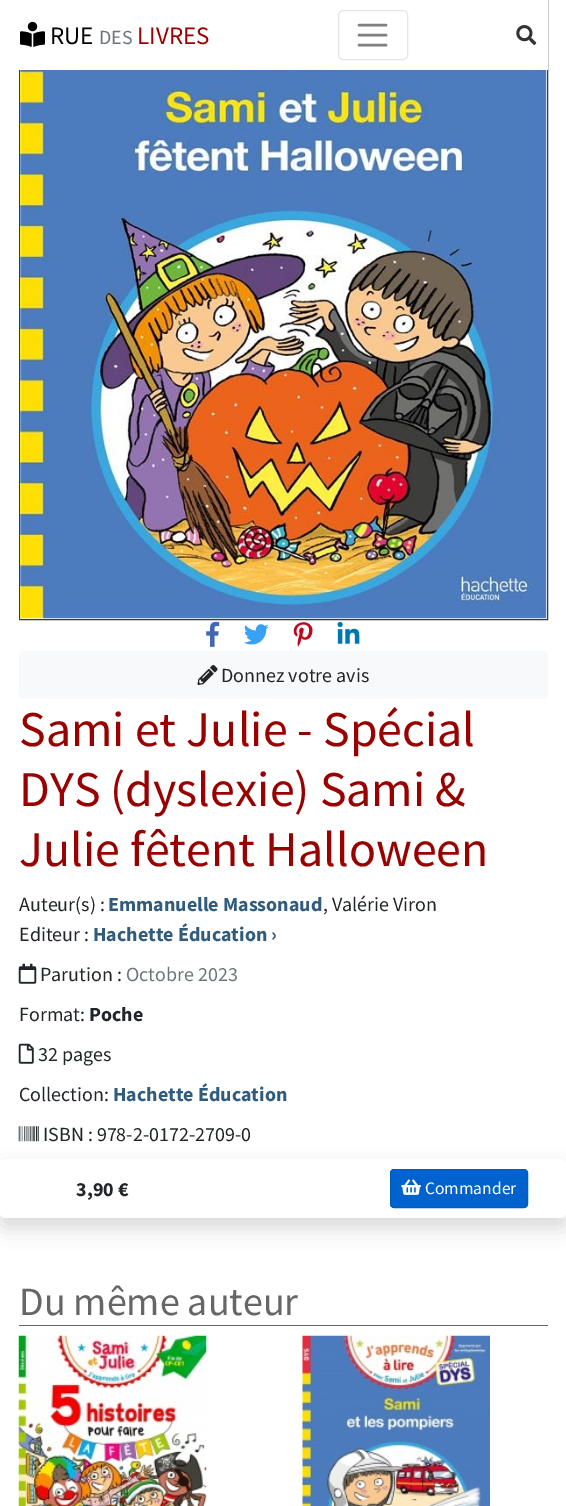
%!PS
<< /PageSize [566 1506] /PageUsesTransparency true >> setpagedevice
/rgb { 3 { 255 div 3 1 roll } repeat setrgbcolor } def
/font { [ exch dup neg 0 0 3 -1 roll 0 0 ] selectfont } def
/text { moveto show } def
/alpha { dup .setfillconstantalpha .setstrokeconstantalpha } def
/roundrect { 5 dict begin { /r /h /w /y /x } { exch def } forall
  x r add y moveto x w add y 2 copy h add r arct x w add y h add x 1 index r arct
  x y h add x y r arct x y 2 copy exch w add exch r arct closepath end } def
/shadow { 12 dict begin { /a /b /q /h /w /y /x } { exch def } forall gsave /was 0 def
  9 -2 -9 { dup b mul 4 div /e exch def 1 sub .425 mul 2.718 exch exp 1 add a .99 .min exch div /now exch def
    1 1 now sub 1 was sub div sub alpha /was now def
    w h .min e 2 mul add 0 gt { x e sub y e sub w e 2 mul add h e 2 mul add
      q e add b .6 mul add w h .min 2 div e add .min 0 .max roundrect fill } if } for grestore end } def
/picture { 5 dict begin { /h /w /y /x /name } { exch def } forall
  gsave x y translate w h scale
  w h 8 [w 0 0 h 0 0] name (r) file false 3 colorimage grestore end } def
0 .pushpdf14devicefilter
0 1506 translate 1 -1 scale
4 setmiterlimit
255 255 255 rgb
0 0 566 1506 rectfill
52 58 64 rgb
19.5 -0.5 528 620 rectstroke
255 255 255 rgb
19 0 529 70 rectfill
(img_01.rgb) 20 21 25 26 picture
230 230 230 rgb
338.5 10.5 69 49 4.5 roundrect stroke
128 128 128 rgb
2.5 setlinewidth
1 setlinecap
359 25 moveto 27 0 rlineto 359 35 moveto 27 0 rlineto 359 45 moveto 27 0 rlineto stroke
(img_02.rgb) 516 25 21 20 picture
(img_03.rgb) 20 70 527 549 picture
(img_04.rgb) 206 621 14 26 picture
(img_05.rgb) 244 624 25 21 picture
(img_06.rgb) 293 622 20 25 picture
(img_07.rgb) 337 621 23 23 picture
248 249 250 rgb
19 651 529 48 5 roundrect fill
(img_08.rgb) 197 665 21 20 picture
(img_09.rgb) 18 963 19 21 picture
(img_10.rgb) 18 1043 16 21 picture
0 0 0 rgb
0 1169 566 59 5 10 0.15 shadow
(img_11.rgb) 18 1126 21 16 picture
255 255 255 rgb
0 1159 566 59 5 roundrect fill
0 98 204 rgb
390.5 1169.5 137 38 3.5 roundrect gsave fill grestore
0 92 191 rgb
1 setlinewidth
0 setlinecap
stroke
(img_12.rgb) 401 1179 20 16 picture
102 102 102 rgb
19 1325 529 1 rectfill
(img_13.rgb) 18 1335 189 171 picture
(img_14.rgb) 302 1335 188 171 picture
/SourceSansPro-Regular 25 font
0 0 0 rgb
(RUE) 50 44 text
/SourceSansPro-Regular 20 font
108 117 125 rgb
(DES) 99 44 text
/SourceSansPro-Regular 25 font
153 0 0 rgb
(LIVRES) 137 44 text
/SourceSansPro-Regular 20 font
33 37 41 rgb
(Donnez votre avis) 221 682 text
/SourceSansPro-Regular 50 font
153 0 0 rgb
(Sami et Julie - Spécial) 19 746 text
(DYS \(dyslexie\) Sami &) 19 806 text
(Julie fêtent Halloween) 19 866 text
/SourceSansPro-Regular 20 font
33 37 41 rgb
(Auteur\(s\) :) 19 911 text
/SourceSansPro-Bold 20 font
49 91 125 rgb
(Emmanuelle Massonaud) 108 911 text
/SourceSansPro-Regular 20 font
33 37 41 rgb
(, Valérie Viron) 323 911 text
(Editeur :) 19 941 text
/SourceSansPro-Bold 20 font
49 91 125 rgb
(Hachette Éducation ›) 93 941 text
/SourceSansPro-Regular 20 font
33 37 41 rgb
(Parution :) 40 981 text
108 117 125 rgb
(Octobre 2023) 126 981 text
33 37 41 rgb
(Format:) 19 1021 text
/SourceSansPro-Bold 20 font
(Poche) 89 1021 text
/SourceSansPro-Regular 20 font
(32 pages) 38 1061 text
(Collection:) 19 1101 text
/SourceSansPro-Bold 20 font
49 91 125 rgb
(Hachette Éducation) 113 1101 text
/SourceSansPro-Regular 20 font
33 37 41 rgb
(ISBN : 978-2-0172-2709-0) 43 1141 text
/SourceSansPro-Bold 20 font
(3,90 €) 76 1196 text
/SourceSansPro-Regular 17.5 font
255 255 255 rgb
(Commander) 425 1194 text
/SourceSansPro-Regular 40 font
102 102 102 rgb
(Du même auteur) 19 1315 text
.poppdf14devicefilter showpage
